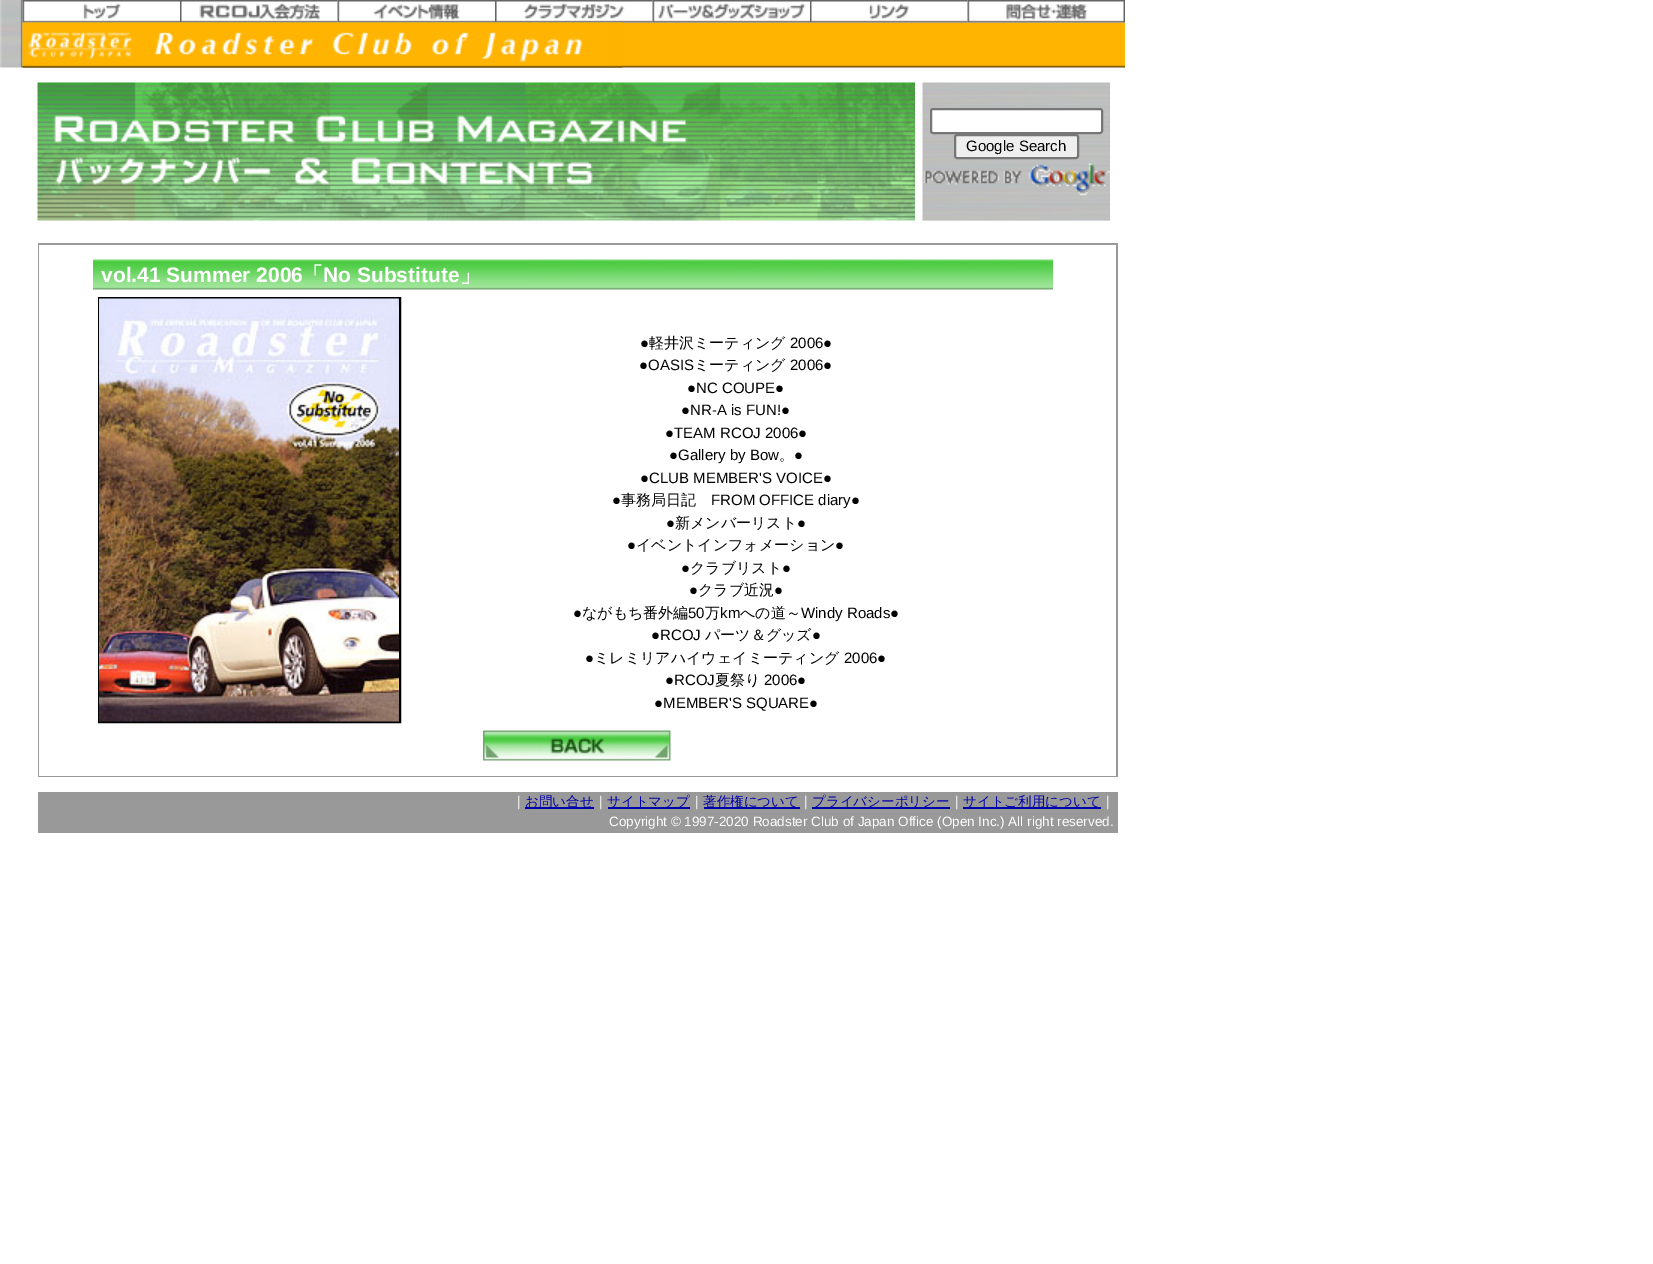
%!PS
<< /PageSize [1653 1264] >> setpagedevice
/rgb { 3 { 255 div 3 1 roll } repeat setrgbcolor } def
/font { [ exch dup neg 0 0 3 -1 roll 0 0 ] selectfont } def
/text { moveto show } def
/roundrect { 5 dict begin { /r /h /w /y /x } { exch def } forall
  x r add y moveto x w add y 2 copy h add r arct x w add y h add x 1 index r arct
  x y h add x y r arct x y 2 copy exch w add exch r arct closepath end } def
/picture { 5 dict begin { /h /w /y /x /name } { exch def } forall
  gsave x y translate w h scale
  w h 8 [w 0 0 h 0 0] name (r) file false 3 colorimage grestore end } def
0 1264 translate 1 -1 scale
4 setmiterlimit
255 255 255 rgb
0 0 1653 1264 rectfill
(img_09.rgb) 22 22 1103 46 picture
(img_01.rgb) 0 0 23 68 picture
(img_02.rgb) 22 0 158 23 picture
(img_03.rgb) 180 0 158 23 picture
(img_04.rgb) 337 0 158 23 picture
(img_05.rgb) 495 0 158 23 picture
(img_06.rgb) 652 0 158 23 picture
(img_07.rgb) 810 0 158 23 picture
(img_08.rgb) 967 0 158 23 picture
(img_10.rgb) 22 22 601 46 picture
(img_11.rgb) 37 82 878 139 picture
238 238 238 rgb
923 220 187 1 rectfill
(img_12.rgb) 922 82 188 139 picture
255 255 255 rgb
931 109 171 24 2 roundrect gsave fill grestore
118 118 118 rgb
2 setlinewidth
stroke
239 239 239 rgb
955 135 123 23 2 roundrect gsave fill grestore
118 118 118 rgb
stroke
(img_13.rgb) 923 163 187 33 picture
153 153 153 rgb
38 243 1080 534 rectfill
255 255 255 rgb
39 245 1077 531 rectfill
(img_14.rgb) 93 259 960 31 picture
0 0 0 rgb
99 298 301 424 rectstroke
(img_15.rgb) 99 298 300 424 picture
(img_16.rgb) 483 730 188 31 picture
153 153 153 rgb
38 792 1080 41 rectfill
0 0 170 rgb
525 807 69 2 rectfill
608 807 82 2 rectfill
704 807 96 2 rectfill
812 807 138 2 rectfill
963 807 138 2 rectfill
/LiberationSans-Regular 15 font
0 0 0 rgb
(Google Search) 966 151 text
/LiberationSans-Bold 21 font
255 255 255 rgb
(vol.41 Summer 2006) 101 282 text
/WenQuanYiZenHei-Bold 21 font
(「) 302 282 text
/LiberationSans-Bold 21 font
(No Substitute) 323 282 text
/WenQuanYiZenHei-Bold 21 font
(」) 460 282 text
/LiberationSans-Regular 15 font
0 0 0 rgb
(●) 640 348 text
/WenQuanYiZenHei-Medium 15 font
(軽井沢ミーティング) 649 348 text
/LiberationSans-Regular 15 font
(2006●) 790 348 text
(●OASIS) 639 370 text
/WenQuanYiZenHei-Medium 15 font
(ミーティング) 694 370 text
/LiberationSans-Regular 15 font
(2006●) 790 370 text
(●NC COUPE●) 687 393 text
(●NR-A is FUN!●) 681 415 text
(●TEAM RCOJ 2006●) 665 438 text
(●Gallery by Bow) 669 460 text
(●) 794 460 text
/WenQuanYiZenHei-Medium 15 font
(。) 779 460 text
/LiberationSans-Regular 15 font
(●CLUB MEMBER'S VOICE●) 640 483 text
(●) 612 505 text
/WenQuanYiZenHei-Medium 15 font
(事務局日記) 621 505 text
/LiberationSans-Regular 15 font
(FROM OFFICE diary●) 711 505 text
(●) 666 528 text
/WenQuanYiZenHei-Medium 15 font
(新メンバーリスト) 675 528 text
/LiberationSans-Regular 15 font
(●) 797 528 text
(●) 627 550 text
/WenQuanYiZenHei-Medium 15 font
(イベントインフォメーション) 636 550 text
/LiberationSans-Regular 15 font
(●) 835 550 text
(●) 681 573 text
/WenQuanYiZenHei-Medium 15 font
(クラブリスト) 690 573 text
/LiberationSans-Regular 15 font
(●) 782 573 text
(●) 689 595 text
/WenQuanYiZenHei-Medium 15 font
(クラブ近況) 698 595 text
/LiberationSans-Regular 15 font
(●) 774 595 text
(●) 573 618 text
/WenQuanYiZenHei-Medium 15 font
(ながもち番外編) 582 618 text
/LiberationSans-Regular 15 font
(50) 688 618 text
/WenQuanYiZenHei-Medium 15 font
(万) 705 618 text
/LiberationSans-Regular 15 font
(km) 720 618 text
/WenQuanYiZenHei-Medium 15 font
(への道～) 740 618 text
/LiberationSans-Regular 15 font
(Windy Roads●) 801 618 text
(●RCOJ) 651 640 text
/WenQuanYiZenHei-Medium 15 font
(パーツ＆グッズ) 705 640 text
/LiberationSans-Regular 15 font
(●) 812 640 text
(●) 585 663 text
/WenQuanYiZenHei-Medium 15 font
(ミレミリアハイウェイミーティング) 594 663 text
/LiberationSans-Regular 15 font
(2006●) 844 663 text
(●RCOJ) 665 685 text
/WenQuanYiZenHei-Medium 15 font
(夏祭り) 715 685 text
/LiberationSans-Regular 15 font
(2006●) 764 685 text
(●MEMBER'S SQUARE●) 654 708 text
/WenQuanYiZenHei-Medium 13.5 font
255 255 255 rgb
(｜) 512 806 text
0 0 170 rgb
(お問い合せ) 525 806 text
255 255 255 rgb
(｜) 594 806 text
0 0 170 rgb
(サイトマップ) 607 806 text
255 255 255 rgb
(｜) 690 806 text
0 0 170 rgb
(著作権について) 703 806 text
255 255 255 rgb
(｜) 799 806 text
0 0 170 rgb
(プライバシーポリシー) 812 806 text
255 255 255 rgb
(｜) 950 806 text
0 0 170 rgb
(サイトご利用について) 963 806 text
255 255 255 rgb
(｜) 1101 806 text
/LiberationSans-Regular 13.5 font
(Copyright © 1997-2020 Roadster Club of Japan Office \(Open Inc.\) All right reserved.) 609 826 text
showpage
